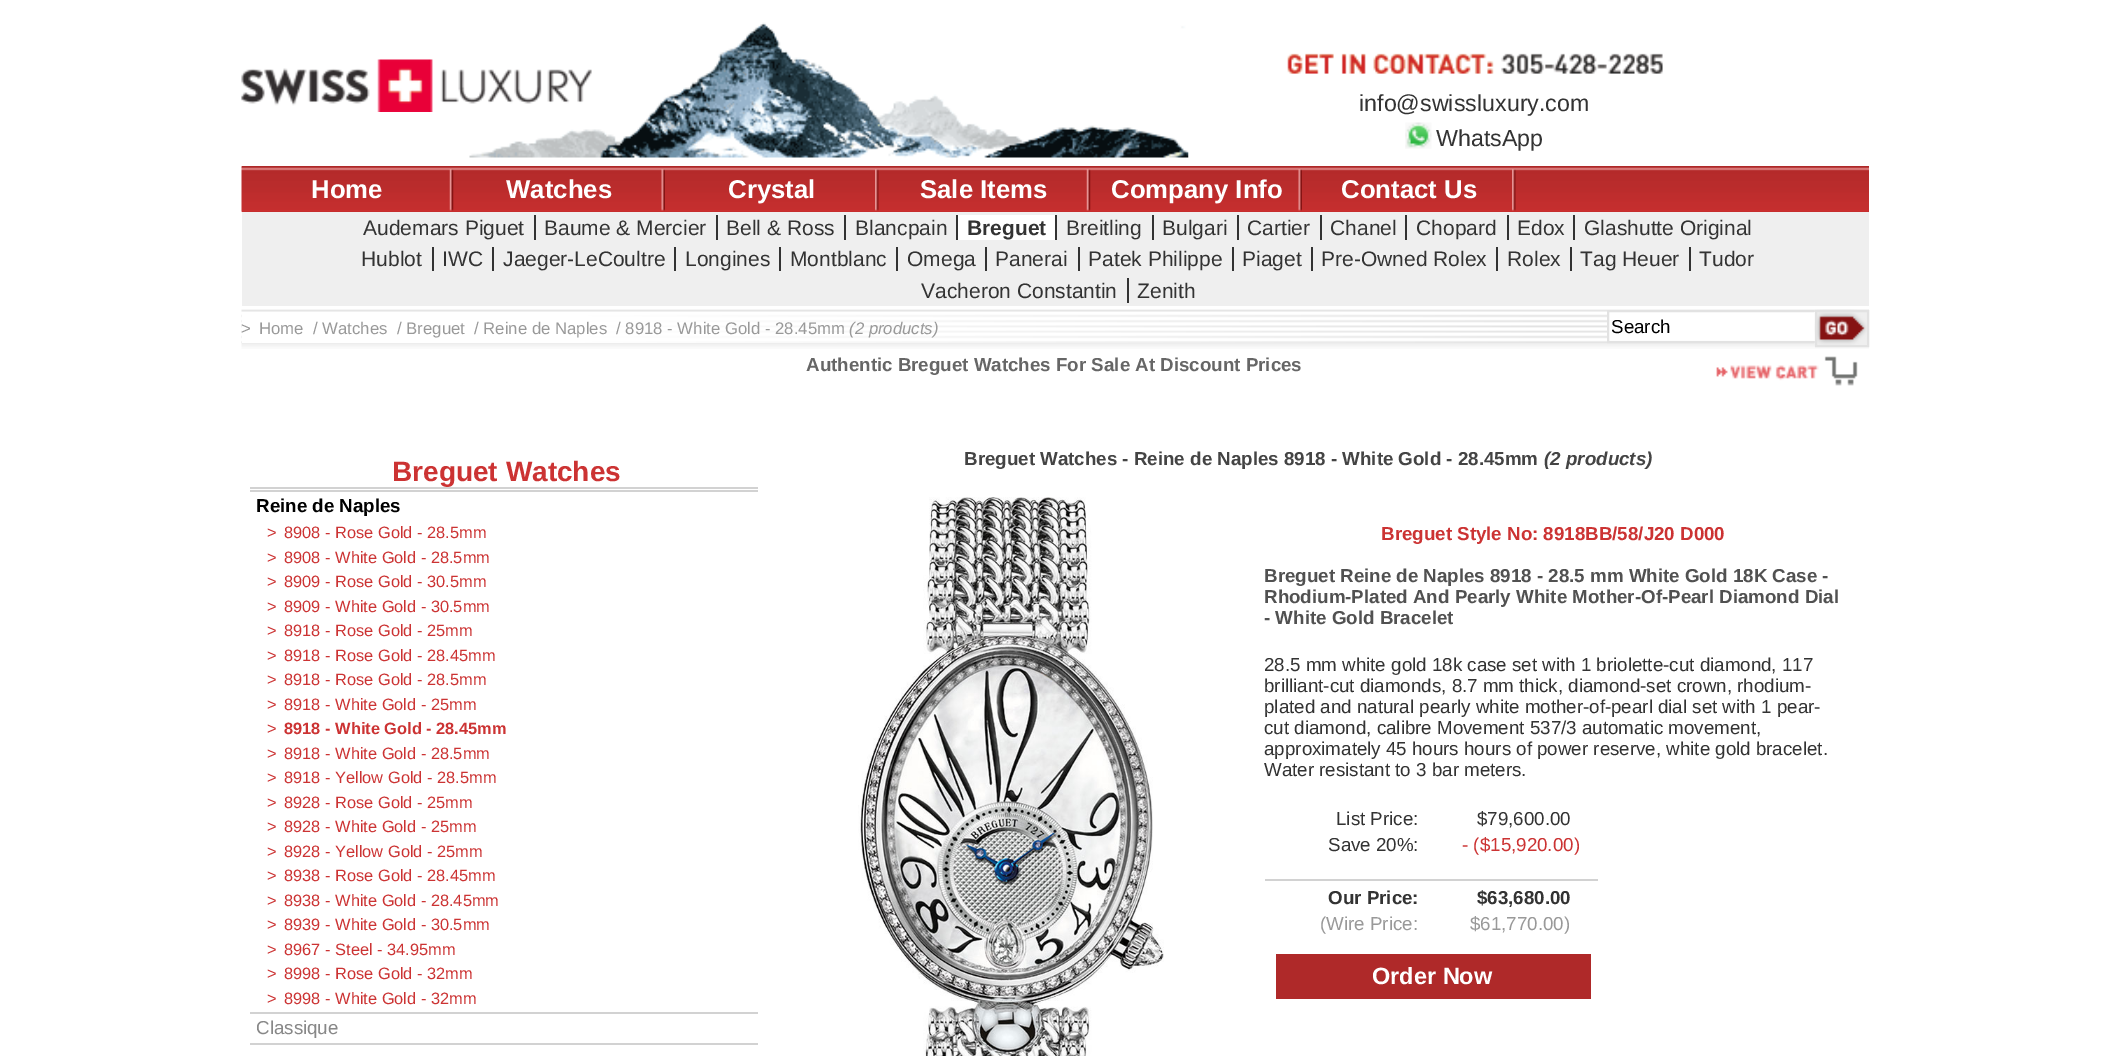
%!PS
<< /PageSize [2108 1056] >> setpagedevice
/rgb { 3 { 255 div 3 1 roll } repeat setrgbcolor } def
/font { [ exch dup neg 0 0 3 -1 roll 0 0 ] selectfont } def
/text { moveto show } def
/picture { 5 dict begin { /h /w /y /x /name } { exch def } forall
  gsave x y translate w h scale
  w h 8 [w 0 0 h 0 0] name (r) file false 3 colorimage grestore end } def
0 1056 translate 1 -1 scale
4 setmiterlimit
255 255 255 rgb
0 0 2108 1056 rectfill
(img_01.rgb) 469 22 720 136 picture
(img_02.rgb) 241 59 351 53 picture
(img_03.rgb) 1287 53 376 21 picture
(img_04.rgb) 1405 122 27 27 picture
(img_05.rgb) 241 166 1628 46 picture
(img_06.rgb) 449 169 5 42 picture
(img_07.rgb) 661 169 4 42 picture
(img_08.rgb) 875 169 4 42 picture
(img_09.rgb) 1086 169 5 42 picture
(img_07.rgb) 1298 169 4 42 picture
(img_08.rgb) 1512 169 4 42 picture
239 239 239 rgb
242 212 1627 94 rectfill
51 51 51 rgb
534 215 2 25 rectfill
716 215 2 25 rectfill
844 215 2 25 rectfill
255 255 255 rgb
958 215 97 25 rectfill
51 51 51 rgb
956 215 2 25 rectfill
1055 215 2 25 rectfill
1152 215 2 25 rectfill
1237 215 2 25 rectfill
1320 215 2 25 rectfill
1405 215 2 25 rectfill
1507 215 2 25 rectfill
1573 215 2 25 rectfill
432 247 2 24 rectfill
492 247 2 24 rectfill
674 247 2 24 rectfill
779 247 2 24 rectfill
896 247 2 24 rectfill
985 247 2 24 rectfill
1078 247 2 24 rectfill
1232 247 2 24 rectfill
1311 247 2 24 rectfill
1496 247 2 24 rectfill
1570 247 2 24 rectfill
1689 247 2 24 rectfill
1127 278 2 25 rectfill
(img_10.rgb) 241 309 1628 40 picture
255 255 255 rgb
1609 314 206 25 rectfill
226 226 226 rgb
2 setlinewidth
1608 311 209 31 rectstroke
(img_11.rgb) 1814 309 55 38 picture
1816 311 52 35 rectstroke
(img_12.rgb) 1716 356 142 30 picture
210 210 210 rgb
250 487 508 2 rectfill
250 490 508 2 rectfill
250 1012 508 2 rectfill
250 1043 508 2 rectfill
(img_13.rgb) 858 497 306 559 picture
1265 879 333 2 rectfill
175 41 41 rgb
1276 954 315 45 rectfill
/LiberationSans-Regular 23.25 font
51 51 51 rgb
(info@swissluxury.com) 1359 111 text
(WhatsApp) 1436 146 text
/LiberationSans-Bold 25.75 font
255 255 255 rgb
(Home) 311 198 text
(Watches) 506 198 text
(Crystal) 728 198 text
(Sale Items) 920 198 text
(Company Info) 1111 198 text
(Contact Us) 1341 198 text
/LiberationSans-Regular 21 font
51 51 51 rgb
(Audemars Piguet) 363 235 text
(Baume & Mercier) 544 235 text
(Bell & Ross) 726 235 text
(Blancpain) 855 235 text
/LiberationSans-Bold 21 font
(Breguet) 967 235 text
/LiberationSans-Regular 21 font
(Breitling) 1066 235 text
(Bulgari) 1162 235 text
(Cartier) 1247 235 text
(Chanel) 1330 235 text
(Chopard) 1416 235 text
(Edox) 1517 235 text
(Glashutte Original) 1584 235 text
(Hublot) 361 266 text
(IWC) 442 266 text
(Jaeger-LeCoultre) 503 266 text
(Longines) 685 266 text
(Montblanc) 790 266 text
(Omega) 907 266 text
(Panerai) 995 266 text
(Patek Philippe) 1088 266 text
(Piaget) 1242 266 text
(Pre-Owned Rolex) 1321 266 text
(Rolex) 1507 266 text
(Tag Heuer) 1580 266 text
(Tudor) 1699 266 text
(Vacheron Constantin) 921 298 text
(Zenith) 1137 298 text
/LiberationSans-Regular 16.75 font
153 153 153 rgb
(>) 241 334 text
(Home) 259 334 text
(/ Watches) 313 334 text
(/ Breguet) 397 334 text
(/ Reine de Naples) 474 334 text
(/ 8918 - White Gold - 28.45mm) 616 334 text
/LiberationSans-Italic 16.75 font
(\(2 products\)) 849 334 text
/LiberationSans-Regular 18.75 font
0 0 0 rgb
(Search) 1611 333 text
/LiberationSans-Bold 18.75 font
102 102 102 rgb
(Authentic Breguet Watches For Sale At Discount Prices) 806 371 text
/LiberationSans-Bold 28 font
204 51 51 rgb
(Breguet Watches) 392 481 text
/LiberationSans-Bold 18.75 font
0 0 0 rgb
(Reine de Naples) 256 512 text
/LiberationSans-Regular 16.4 font
204 51 51 rgb
(>) 267 538 text
(8908 - Rose Gold - 28.5mm) 284 538 text
(>) 267 563 text
(8908 - White Gold - 28.5mm) 284 563 text
(>) 267 587 text
(8909 - Rose Gold - 30.5mm) 284 587 text
(>) 267 612 text
(8909 - White Gold - 30.5mm) 284 612 text
(>) 267 636 text
(8918 - Rose Gold - 25mm) 284 636 text
(>) 267 661 text
(8918 - Rose Gold - 28.45mm) 284 661 text
(>) 267 685 text
(8918 - Rose Gold - 28.5mm) 284 685 text
(>) 267 710 text
(8918 - White Gold - 25mm) 284 710 text
(>) 267 734 text
/LiberationSans-Bold 16.4 font
(8918 - White Gold - 28.45mm) 284 734 text
/LiberationSans-Regular 16.4 font
(>) 267 759 text
(8918 - White Gold - 28.5mm) 284 759 text
(>) 267 783 text
(8918 - Yellow Gold - 28.5mm) 284 783 text
(>) 267 808 text
(8928 - Rose Gold - 25mm) 284 808 text
(>) 267 832 text
(8928 - White Gold - 25mm) 284 832 text
(>) 267 857 text
(8928 - Yellow Gold - 25mm) 284 857 text
(>) 267 881 text
(8938 - Rose Gold - 28.45mm) 284 881 text
(>) 267 906 text
(8938 - White Gold - 28.45mm) 284 906 text
(>) 267 930 text
(8939 - White Gold - 30.5mm) 284 930 text
(>) 267 955 text
(8967 - Steel - 34.95mm) 284 955 text
(>) 267 979 text
(8998 - Rose Gold - 32mm) 284 979 text
(>) 267 1004 text
(8998 - White Gold - 32mm) 284 1004 text
/LiberationSans-Regular 18.75 font
136 136 136 rgb
(Classique) 256 1034 text
/LiberationSans-Bold 18.75 font
68 68 68 rgb
(Breguet Watches - Reine de Naples 8918 - White Gold - 28.45mm) 964 465 text
/LiberationSans-BoldItalic 18.75 font
(\(2 products\)) 1544 465 text
/LiberationSans-Bold 18.75 font
204 51 51 rgb
(Breguet Style No: 8918BB/58/J20 D000) 1381 540 text
81 81 81 rgb
(Breguet Reine de Naples 8918 - 28.5 mm White Gold 18K Case -) 1264 582 text
(Rhodium-Plated And Pearly White Mother-Of-Pearl Diamond Dial) 1264 603 text
(- White Gold Bracelet) 1264 624 text
/LiberationSans-Regular 18.75 font
51 51 51 rgb
(28.5 mm white gold 18k case set with 1 briolette-cut diamond, 117) 1264 671 text
(brilliant-cut diamonds, 8.7 mm thick, diamond-set crown, rhodium-) 1264 692 text
(plated and natural pearly white mother-of-pearl dial set with 1 pear-) 1264 713 text
(cut diamond, calibre Movement 537/3 automatic movement,) 1264 734 text
(approximately 45 hours hours of power reserve, white gold bracelet.) 1264 755 text
(Water resistant to 3 bar meters.) 1264 776 text
(List Price:) 1336 825 text
($79,600.00) 1477 825 text
(Save 20%:) 1328 851 text
204 51 51 rgb
(- \($15,920.00\)) 1462 851 text
/LiberationSans-Bold 18.75 font
51 51 51 rgb
(Our Price:) 1328 904 text
($63,680.00) 1477 904 text
/LiberationSans-Regular 18.75 font
153 153 153 rgb
(\(Wire Price:) 1320 930 text
($61,770.00\)) 1470 930 text
/LiberationSans-Bold 23.5 font
255 255 255 rgb
(Order Now) 1372 984 text
showpage
